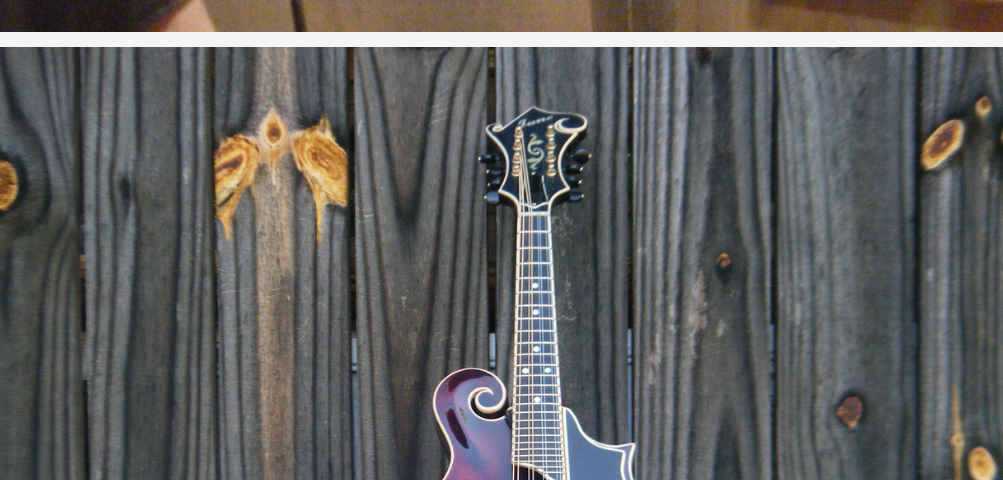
%!PS
<< /PageSize [1003 480] >> setpagedevice
/rgb { 3 { 255 div 3 1 roll } repeat setrgbcolor } def
/picture { 5 dict begin { /h /w /y /x /name } { exch def } forall
  gsave x y translate w h scale
  w h 8 [w 0 0 h 0 0] name (r) file false 3 colorimage grestore end } def
0 480 translate 1 -1 scale
4 setmiterlimit
255 255 255 rgb
0 0 1003 480 rectfill
(img_01.rgb) 0 0 1003 32 picture
245 245 245 rgb
15 setlinewidth
-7.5 39.5 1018 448 rectstroke
(img_02.rgb) 0 47 1003 433 picture
showpage
